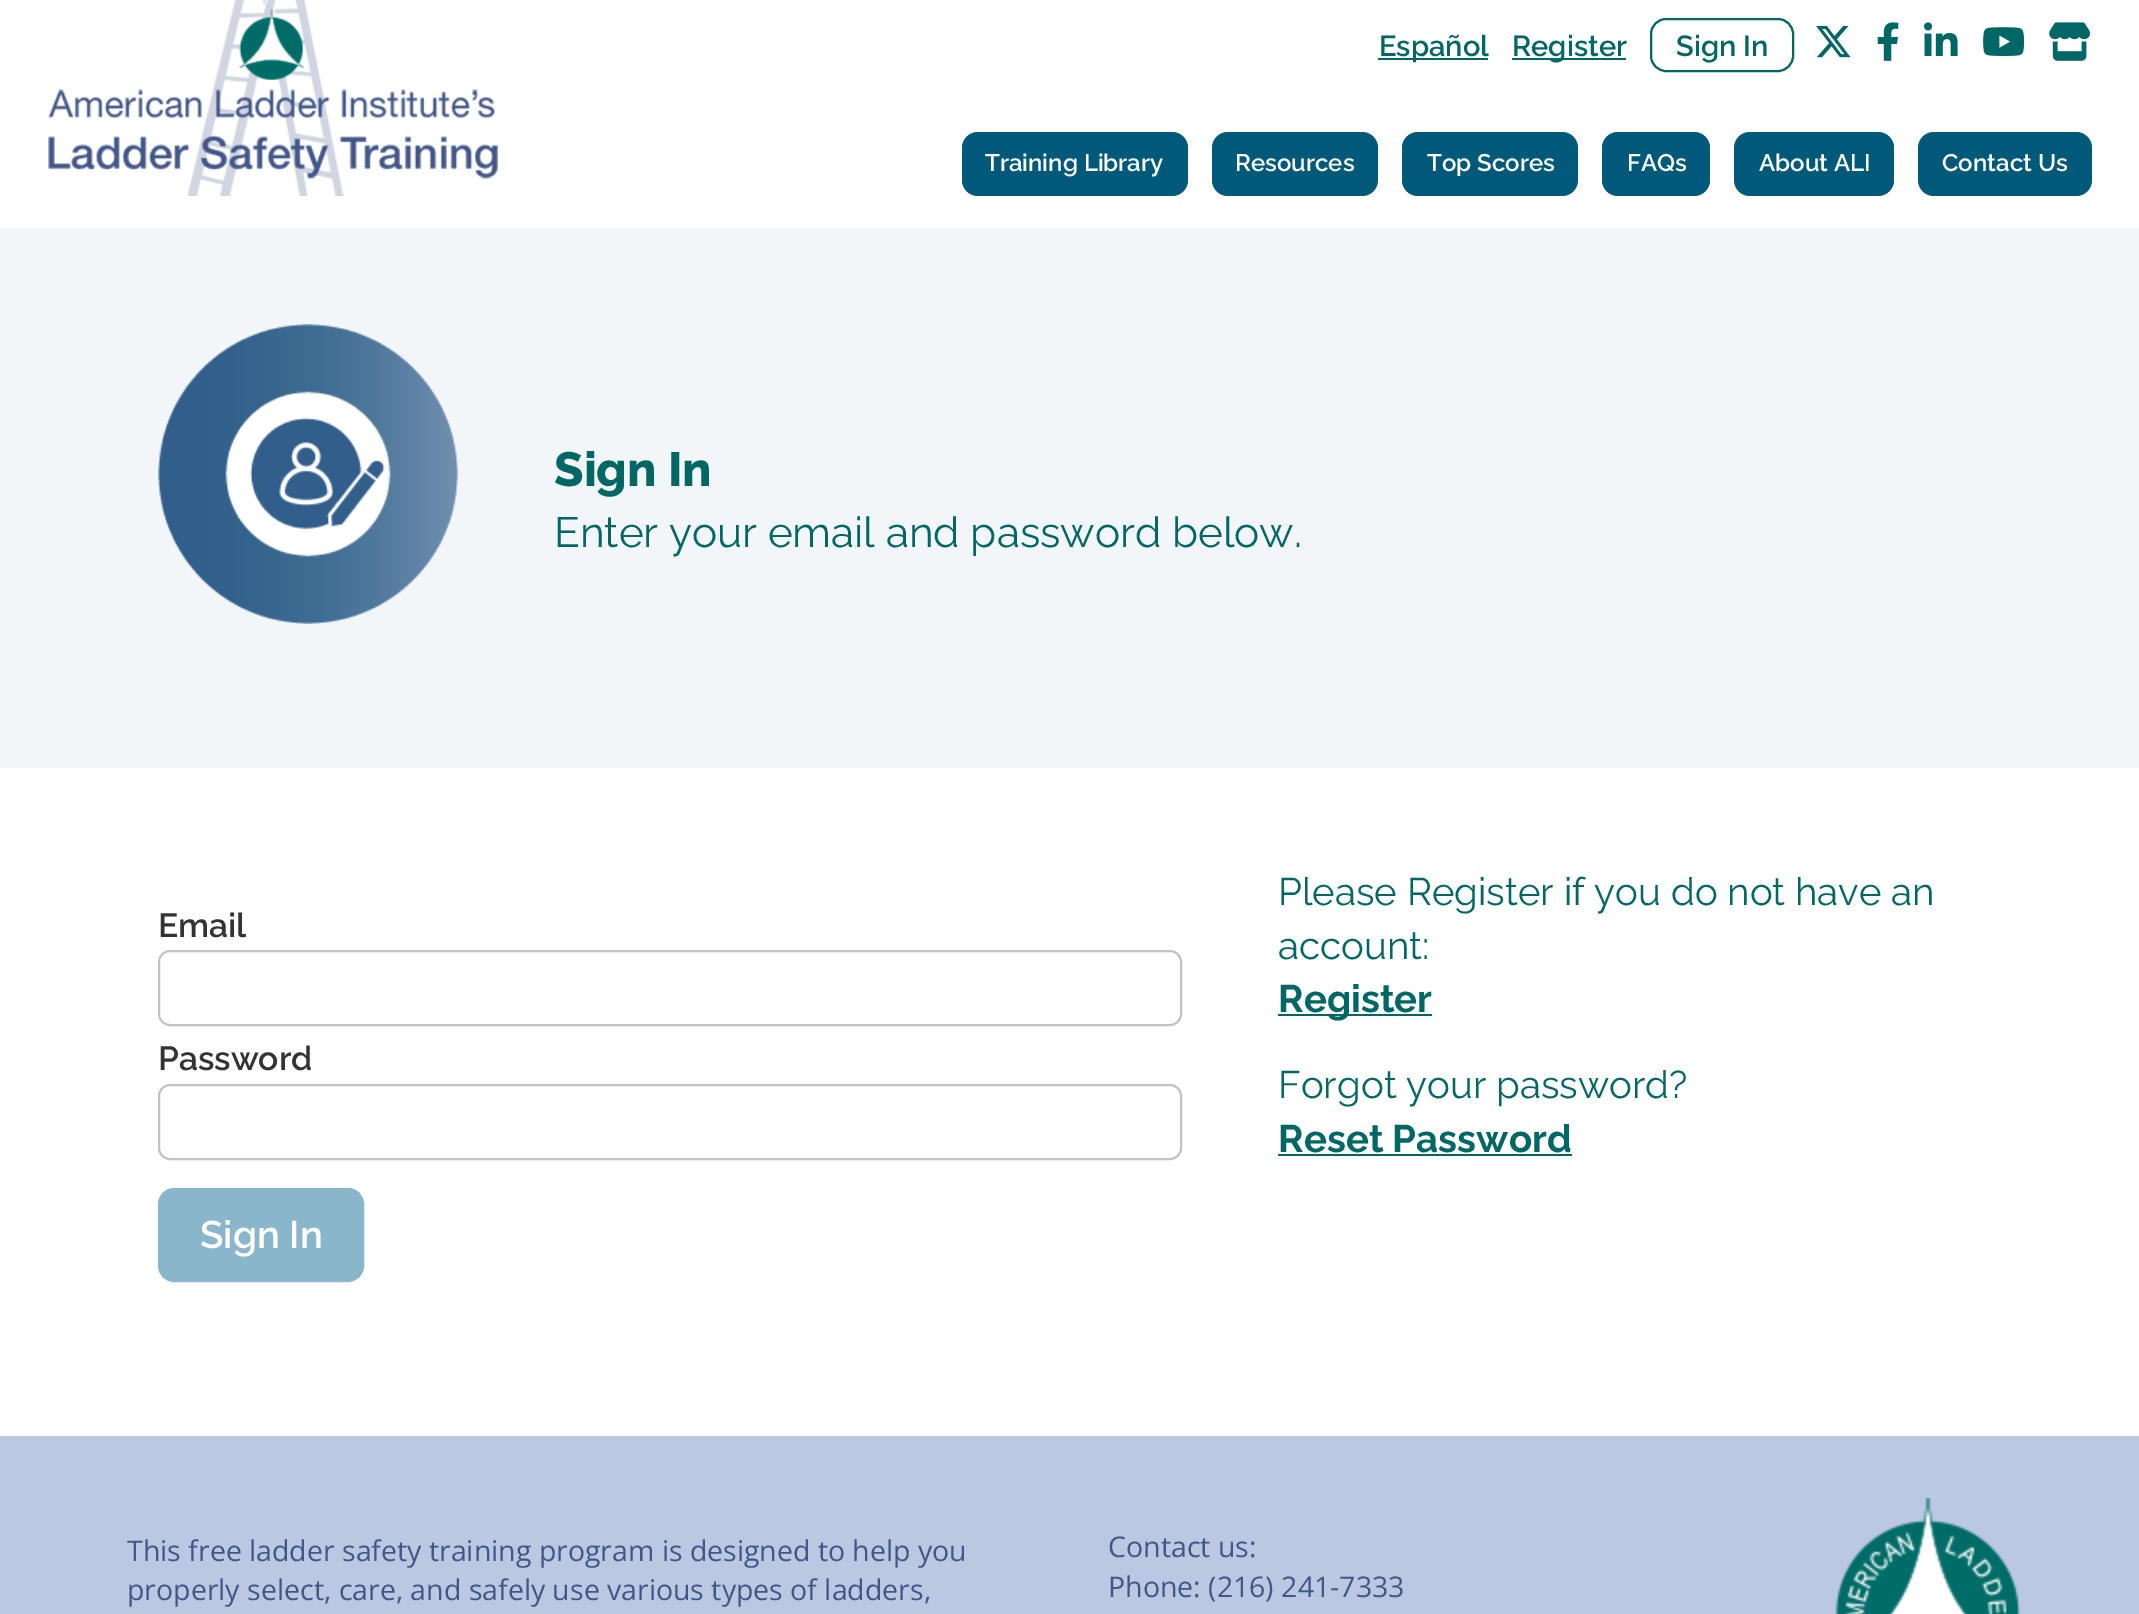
%!PS
<< /PageSize [2139 1614] >> setpagedevice
/rgb { 3 { 255 div 3 1 roll } repeat setrgbcolor } def
/font { [ exch dup neg 0 0 3 -1 roll 0 0 ] selectfont } def
/text { moveto show } def
/roundrect { 5 dict begin { /r /h /w /y /x } { exch def } forall
  x r add y moveto x w add y 2 copy h add r arct x w add y h add x 1 index r arct
  x y h add x y r arct x y 2 copy exch w add exch r arct closepath end } def
/picture { 5 dict begin { /h /w /y /x /name } { exch def } forall
  gsave x y translate w h scale
  w h 8 [w 0 0 h 0 0] name (r) file false 3 colorimage grestore end } def
0 1614 translate 1 -1 scale
4 setmiterlimit
255 255 255 rgb
0 0 2139 1614 rectfill
(img_01.rgb) 48 0 450 196 picture
0 103 101 rgb
1378 58 110 2 rectfill
1512 58 114 2 rectfill
2 setlinewidth
1651 19 142 52 15 roundrect stroke
(img_02.rgb) 1816 26 35 32 picture
(img_03.rgb) 1877 22 22 39 picture
(img_04.rgb) 1924 22 34 34 picture
(img_05.rgb) 1983 27 42 29 picture
(img_06.rgb) 2049 22 41 39 picture
0 89 120 rgb
962 132 226 64 16 roundrect fill
1212 132 166 64 16 roundrect fill
1402 132 176 64 16 roundrect fill
1602 132 108 64 16 roundrect fill
1734 132 160 64 16 roundrect fill
1918 132 174 64 16 roundrect fill
242 246 249 rgb
0 228 2139 540 rectfill
(img_07.rgb) 158 324 300 300 picture
195 195 195 rgb
159 951 1022 74 11 roundrect stroke
159 1085 1022 74 11 roundrect stroke
138 182 203 rgb
159 1189 204 92 15 roundrect gsave fill grestore
stroke
0 103 101 rgb
1278 1014 154 2 rectfill
1278 1154 294 2 rectfill
186 200 225 rgb
0 1436 2139 178 rectfill
(img_08.rgb) 1835 1498 186 116 picture
/Raleway-SemiBold 29 font
0 103 101 rgb
(Español) 1379 56 text
(Register) 1512 56 text
(Sign In) 1676 56 text
/Raleway-SemiBold 24 font
255 255 255 rgb
(Training Library) 985 171 text
(Resources) 1235 171 text
(Top Scores) 1427 171 text
(FAQs) 1627 171 text
(About ALI) 1759 171 text
(Contact Us) 1942 171 text
/Raleway-ExtraBold 48 font
0 103 101 rgb
(Sign In) 554 486 text
/Raleway-Regular 42.25 font
(Enter your email and password below.) 554 547 text
/Raleway-SemiBold 33.5 font
51 51 51 rgb
(Email) 158 937 text
(Password) 158 1070 text
/Raleway-SemiBold 38.4 font
255 255 255 rgb
(Sign In) 200 1248 text
/Raleway-Regular 38.4 font
0 103 101 rgb
(Please Register if you do not have an) 1278 905 text
(account:) 1278 959 text
/Raleway-Bold 38.4 font
(Register) 1278 1012 text
/Raleway-Regular 38.4 font
(Forgot your password?) 1278 1098 text
/Raleway-Bold 38.4 font
(Reset Password) 1278 1152 text
/OpenSans-Regular 28.5 font
66 87 135 rgb
(This free ladder safety training program is designed to help you) 127 1561 text
(properly select, care, and safely use various types of ladders,) 127 1600 text
(Contact us:) 1108 1557 text
(Phone: \(216\) 241-7333) 1108 1597 text
showpage
